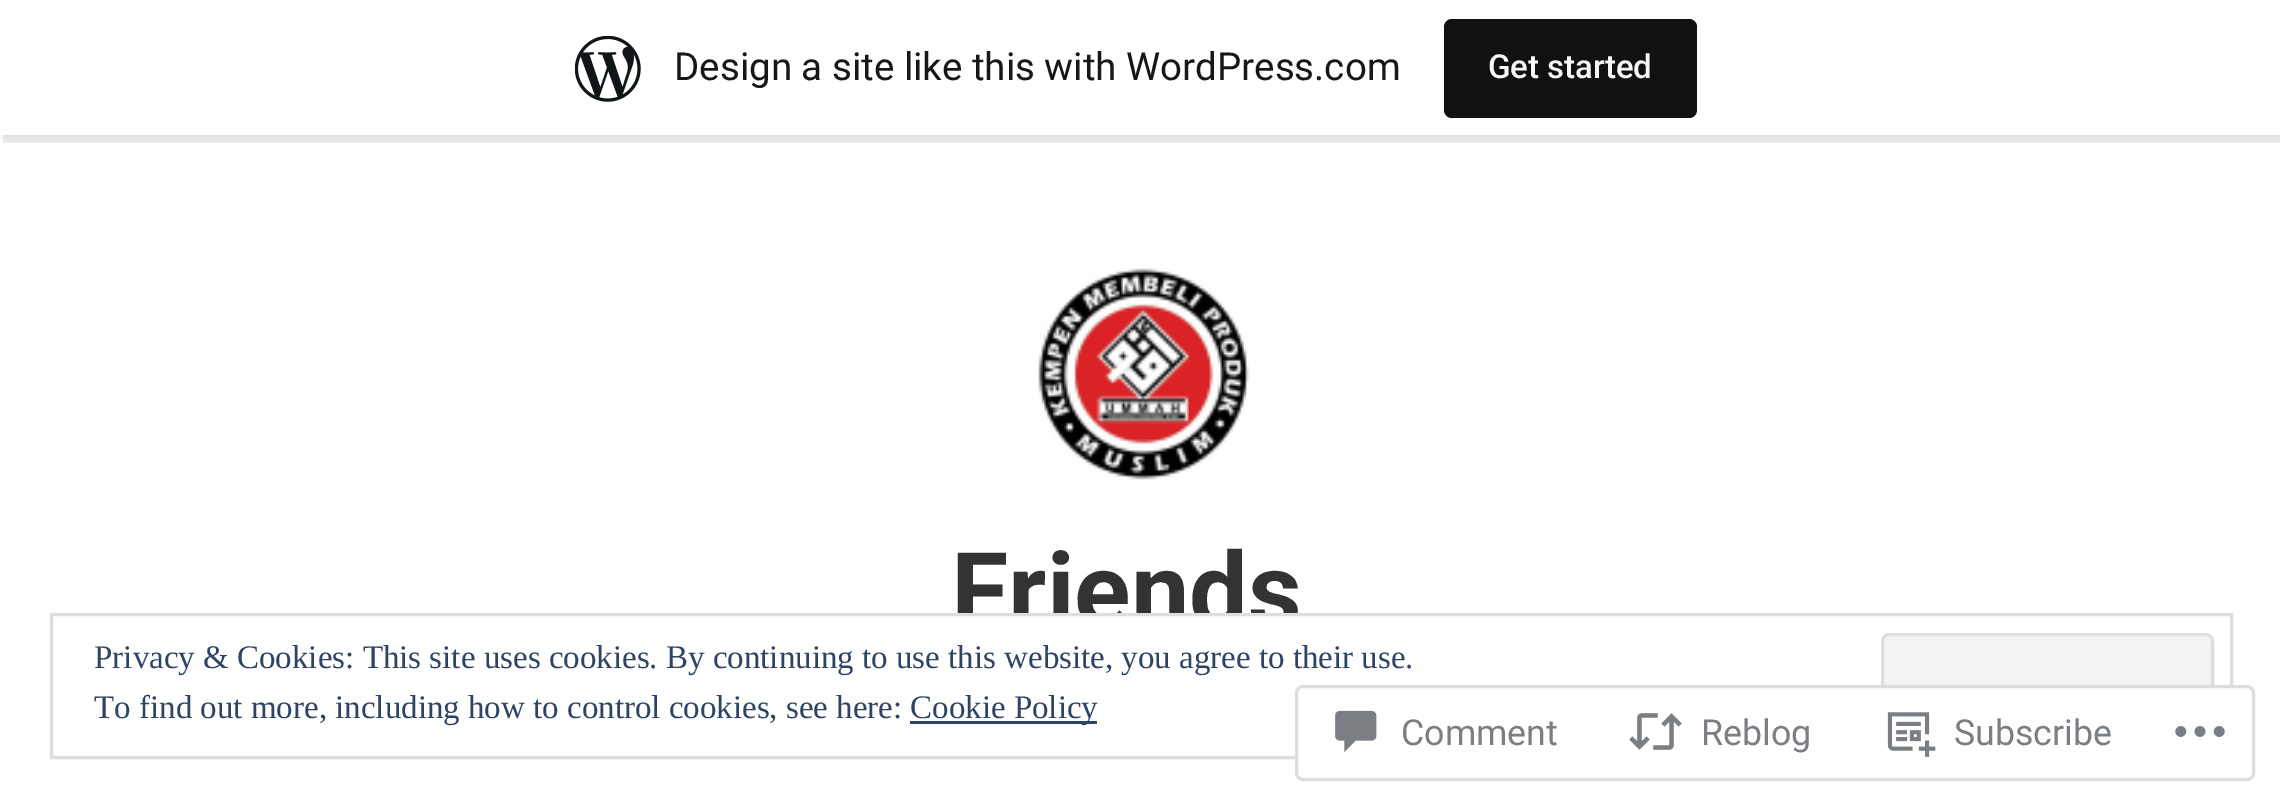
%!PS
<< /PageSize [2280 807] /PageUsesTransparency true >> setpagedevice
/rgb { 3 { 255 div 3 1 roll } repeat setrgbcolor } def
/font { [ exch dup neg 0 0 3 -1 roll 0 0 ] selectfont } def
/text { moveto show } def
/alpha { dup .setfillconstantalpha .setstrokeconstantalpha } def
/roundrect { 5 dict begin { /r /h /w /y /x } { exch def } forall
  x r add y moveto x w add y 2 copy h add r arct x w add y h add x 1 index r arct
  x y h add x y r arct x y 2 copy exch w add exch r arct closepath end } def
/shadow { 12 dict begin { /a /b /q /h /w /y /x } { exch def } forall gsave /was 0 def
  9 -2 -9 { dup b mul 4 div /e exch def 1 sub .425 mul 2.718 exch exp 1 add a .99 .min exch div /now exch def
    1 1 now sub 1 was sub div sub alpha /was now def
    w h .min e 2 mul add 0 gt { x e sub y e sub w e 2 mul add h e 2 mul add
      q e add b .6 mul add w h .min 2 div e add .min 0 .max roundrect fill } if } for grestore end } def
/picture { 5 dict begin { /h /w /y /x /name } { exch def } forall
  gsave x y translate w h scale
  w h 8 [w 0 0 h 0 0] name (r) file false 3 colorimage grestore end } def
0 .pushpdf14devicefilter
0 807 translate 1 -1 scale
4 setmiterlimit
255 255 255 rgb
0 0 2280 807 rectfill
0 0 0 rgb
0 3 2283 135 0 3 0.05 shadow
0.08 alpha
3 135 moveto 0 8 rlineto 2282 0 rlineto 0 -135 rlineto -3 0 rlineto 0 127 rlineto closepath fill
1 alpha
255 255 255 rgb
0 0 2280 135 rectfill
(img_01.rgb) 575 36 66 66 picture
17 17 17 rgb
1444 19 253 99 8 roundrect fill
(img_02.rgb) 1038 268 212 212 picture
/Roboto-Regular 38.5 font
23 23 23 rgb
(Design a site like this with WordPress.com) 674 80 text
/Roboto-Medium 33 font
246 247 247 rgb
(Get started) 1488 78 text
/Roboto-Bold 104.5 font
51 51 50 rgb
(Friends) 951 627 text
255 255 255 rgb
957 616 340 12 rectfill
222 222 222 rgb
3 setlinewidth
51.5 614.5 2180 143 rectstroke
/LiberationSerif-Regular 33 font
46 68 103 rgb
(Privacy & Cookies: This site uses cookies. By continuing to use this website, you agree to their use.) 94 668 text
243 243 243 rgb
1882.5 634.5 330 104 6.5 roundrect gsave fill grestore
222 222 222 rgb
stroke
46 68 103 rgb
(To find out more, including how to control cookies, see here:) 94 718 text
910 721 187 3 rectfill
(Cookie Policy) 910 718 text
0.98 alpha
255 255 255 rgb
1295 685 960 96 8 roundrect fill
220 220 222 rgb
1296.5 686.5 957 93 6.5 roundrect stroke
1 alpha
(img_03.rgb) 1335 710 42 42 picture
/Roboto-Regular 35.75 font
123 127 133 rgb
(Comment) 1401 745 text
(img_04.rgb) 1629 713 53 37 picture
(Reblog) 1701 745 text
(img_05.rgb) 1887 712 49 45 picture
(Subscribe) 1954 745 text
(img_06.rgb) 2175 726 50 11 picture
.poppdf14devicefilter showpage
